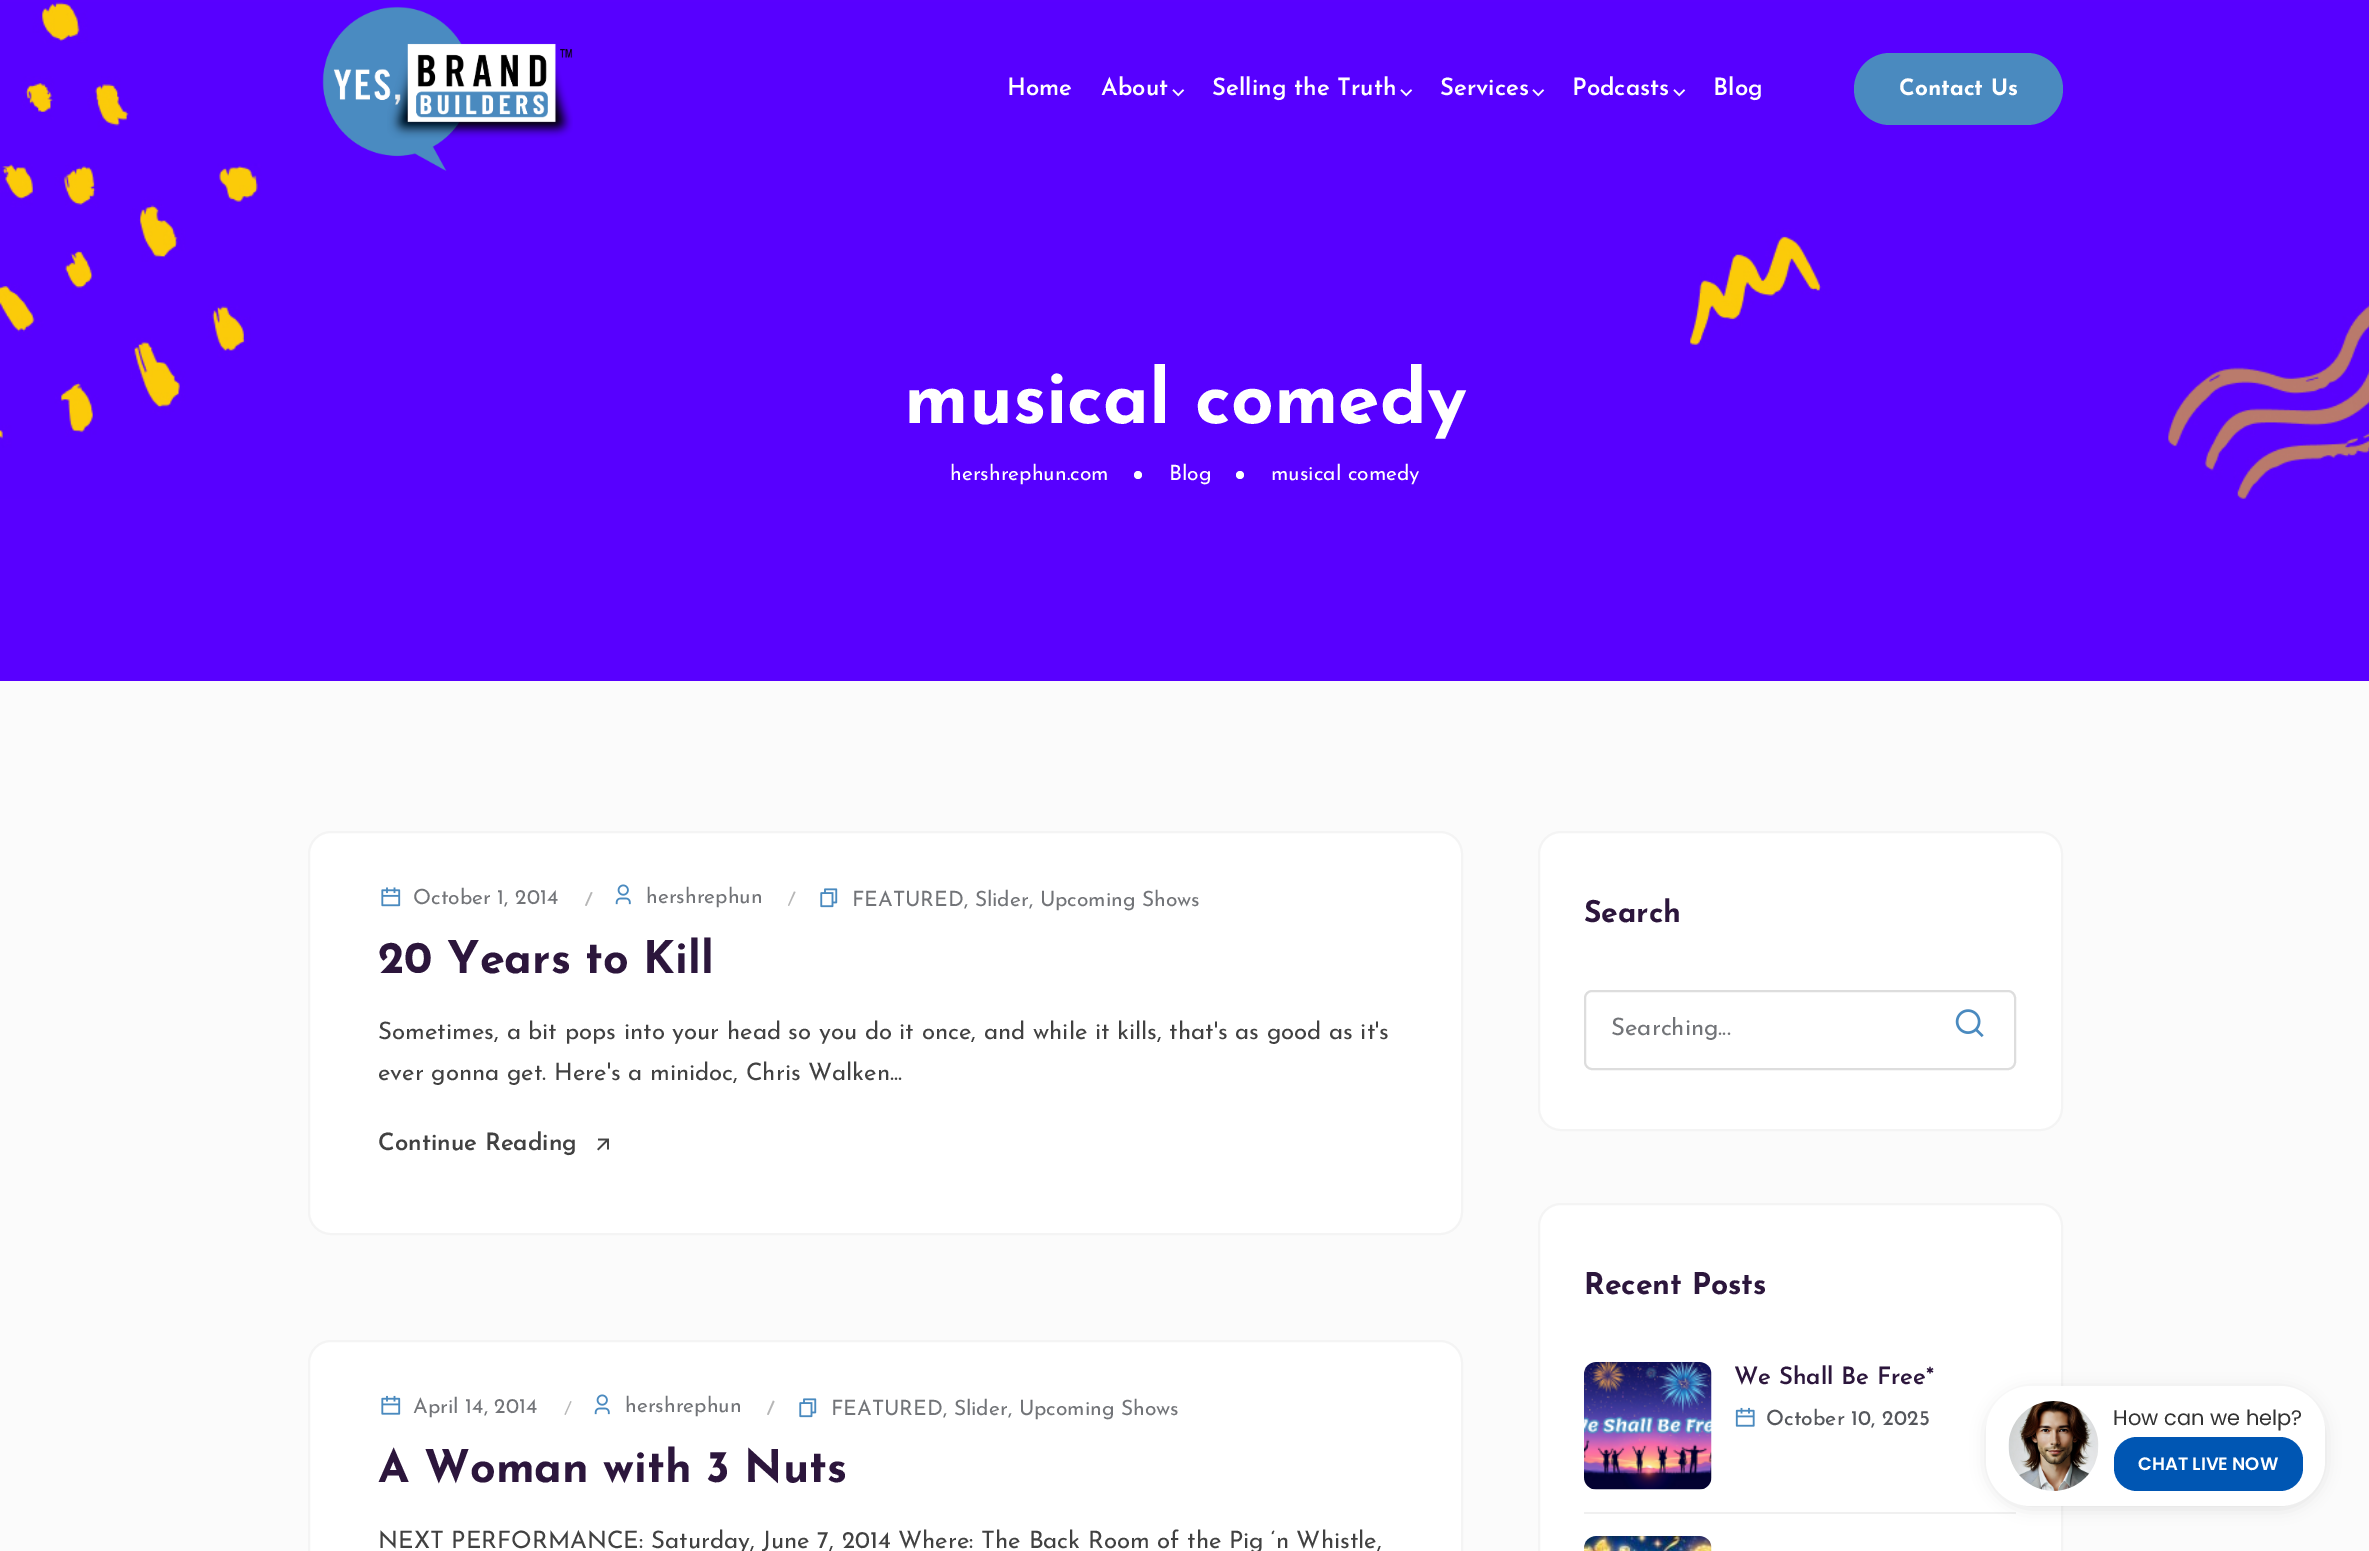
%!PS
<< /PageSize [2369 1551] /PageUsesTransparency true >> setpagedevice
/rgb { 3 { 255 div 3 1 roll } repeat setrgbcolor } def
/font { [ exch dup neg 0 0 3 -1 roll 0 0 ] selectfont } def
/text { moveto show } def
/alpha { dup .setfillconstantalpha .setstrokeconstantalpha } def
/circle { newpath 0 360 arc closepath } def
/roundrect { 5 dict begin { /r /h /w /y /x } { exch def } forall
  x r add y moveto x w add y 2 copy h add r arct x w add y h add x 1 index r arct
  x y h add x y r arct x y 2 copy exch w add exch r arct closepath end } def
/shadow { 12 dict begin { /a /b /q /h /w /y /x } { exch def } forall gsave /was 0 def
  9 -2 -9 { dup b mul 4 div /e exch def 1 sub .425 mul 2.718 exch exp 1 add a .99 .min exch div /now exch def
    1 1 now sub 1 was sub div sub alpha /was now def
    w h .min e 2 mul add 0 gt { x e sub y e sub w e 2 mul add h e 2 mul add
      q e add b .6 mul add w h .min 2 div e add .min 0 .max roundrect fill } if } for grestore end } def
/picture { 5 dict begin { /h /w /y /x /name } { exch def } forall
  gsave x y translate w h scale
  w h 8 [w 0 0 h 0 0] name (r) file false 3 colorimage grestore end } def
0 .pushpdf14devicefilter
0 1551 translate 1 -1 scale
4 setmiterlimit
251 251 251 rgb
0 0 2369 1551 rectfill
88 0 255 rgb
0 0 2369 681 rectfill
(img_03.rgb) 0 2 2369 497 picture
(img_01.rgb) 322 6 251 165 picture
(img_02.rgb) 1172 89 13 8 picture
(img_02.rgb) 1400 89 13 8 picture
(img_02.rgb) 1532 89 13 8 picture
(img_02.rgb) 1673 89 13 8 picture
74 138 191 rgb
1854 53 209 72 36 roundrect fill
255 255 255 rgb
1138 475 4 circle fill
1240 475 4 circle fill
309 832 1153 402 22 roundrect gsave fill grestore
244 244 244 rgb
2 setlinewidth
stroke
(img_04.rgb) 381 887 20 20 picture
182 182 182 rgb
591 892 moveto 1.5 0.5 rlineto -6 13.5 rlineto -1.5 -0.5 rlineto closepath fill
(img_05.rgb) 615 884 16 21 picture
794 891.5 moveto 1.5 0.5 rlineto -6.5 14 rlineto -1 -0.5 rlineto closepath fill
(img_06.rgb) 820 888 18 20 picture
(img_07.rgb) 597 1138 12 13 picture
255 255 255 rgb
309 1341 1153 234 22 roundrect gsave fill grestore
244 244 244 rgb
stroke
(img_08.rgb) 381 1395 20 20 picture
182 182 182 rgb
570.5 1401 moveto 1 0.5 rlineto -6 13.5 rlineto -1 -0.5 rlineto closepath fill
(img_05.rgb) 594 1394 16 21 picture
773 1400.5 moveto 1.5 1 rlineto -6 13.5 rlineto -1.5 -0.5 rlineto closepath fill
(img_06.rgb) 799 1398 18 20 picture
255 255 255 rgb
1539 832 523 298 22 roundrect gsave fill grestore
244 244 244 rgb
stroke
221 221 221 rgb
1585 991 430 78 7 roundrect stroke
(img_09.rgb) 1955 1009 29 29 picture
255 255 255 rgb
1539 1204 523 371 22 roundrect gsave fill grestore
244 244 244 rgb
stroke
(img_10.rgb) 1584 1362 128 128 picture
(img_11.rgb) 1735 1407 20 20 picture
240 240 240 rgb
1584 1512 432 2 rectfill
(img_12.rgb) 1584 1536 128 15 picture
0 0 0 rgb
1986 1389 339 120 45 7.5 0.1 shadow
255 255 255 rgb
1986 1386 339 120 45 roundrect fill
(img_13.rgb) 2008 1401 91 90 picture
0 86 179 rgb
2114 1437 189 54 23 roundrect fill
/JosefinSans-SemiBold 24 font
255 255 255 rgb
(Home) 1007 95 text
(About) 1101 95 text
(Selling the Truth) 1212 95 text
(Services) 1440 95 text
(Podcasts) 1572 95 text
(Blog) 1713 95 text
/JosefinSans-Bold 22.5 font
(Contact Us) 1899 95 text
/JosefinSans-Bold 75 font
(musical comedy) 904 423 text
/JosefinSans-Regular 21 font
(hershrephun.com) 950 480 text
(Blog) 1169 480 text
(musical comedy) 1271 480 text
114 116 120 rgb
(October 1, 2014) 413 904 text
(hershrephun) 646 903 text
(FEATURED, Slider, Upcoming Shows) 852 906 text
/JosefinSans-Bold 45 font
44 22 60 rgb
(20 Years to Kill) 378 973 text
/JosefinSans-Regular 24 font
65 65 65 rgb
(Sometimes, a bit pops into your head so you do it once, and while it kills, that's as good as it's) 378 1039 text
(ever gonna get. Here's a minidoc, Chris Walken...) 378 1080 text
/JosefinSans-SemiBold 24 font
(Continue Reading) 378 1150 text
/JosefinSans-Regular 21 font
114 116 120 rgb
(April 14, 2014) 413 1413 text
(hershrephun) 625 1412 text
(FEATURED, Slider, Upcoming Shows) 831 1415 text
/JosefinSans-Bold 45 font
44 22 60 rgb
(A Woman with 3 Nuts) 378 1482 text
/JosefinSans-Regular 24 font
65 65 65 rgb
(NEXT PERFORMANCE: Saturday, June 7, 2014 Where: The Back Room of the Pig ‘n Whistle,) 378 1548 text
/JosefinSans-Bold 30 font
44 22 60 rgb
(Search) 1584 922 text
gsave
1611 1017 372 24 rectclip
/JosefinSans-Regular 24 font
114 116 120 rgb
(Searching...) 1611 1035 text
grestore
(Recent Posts) 1584 1294 text
/JosefinSans-SemiBold 24 font
(We Shall Be Free*) 1734 1384 text
/JosefinSans-Medium 21 font
85 87 92 rgb
(October 10, 2025) 1766 1425 text
/Poppins-Regular 21 font
51 51 51 rgb
(How can we help?) 2113 1425 text
/Poppins-SemiBold 18 font
255 255 255 rgb
(CHAT LIVE NOW) 2138 1470 text
.poppdf14devicefilter showpage
